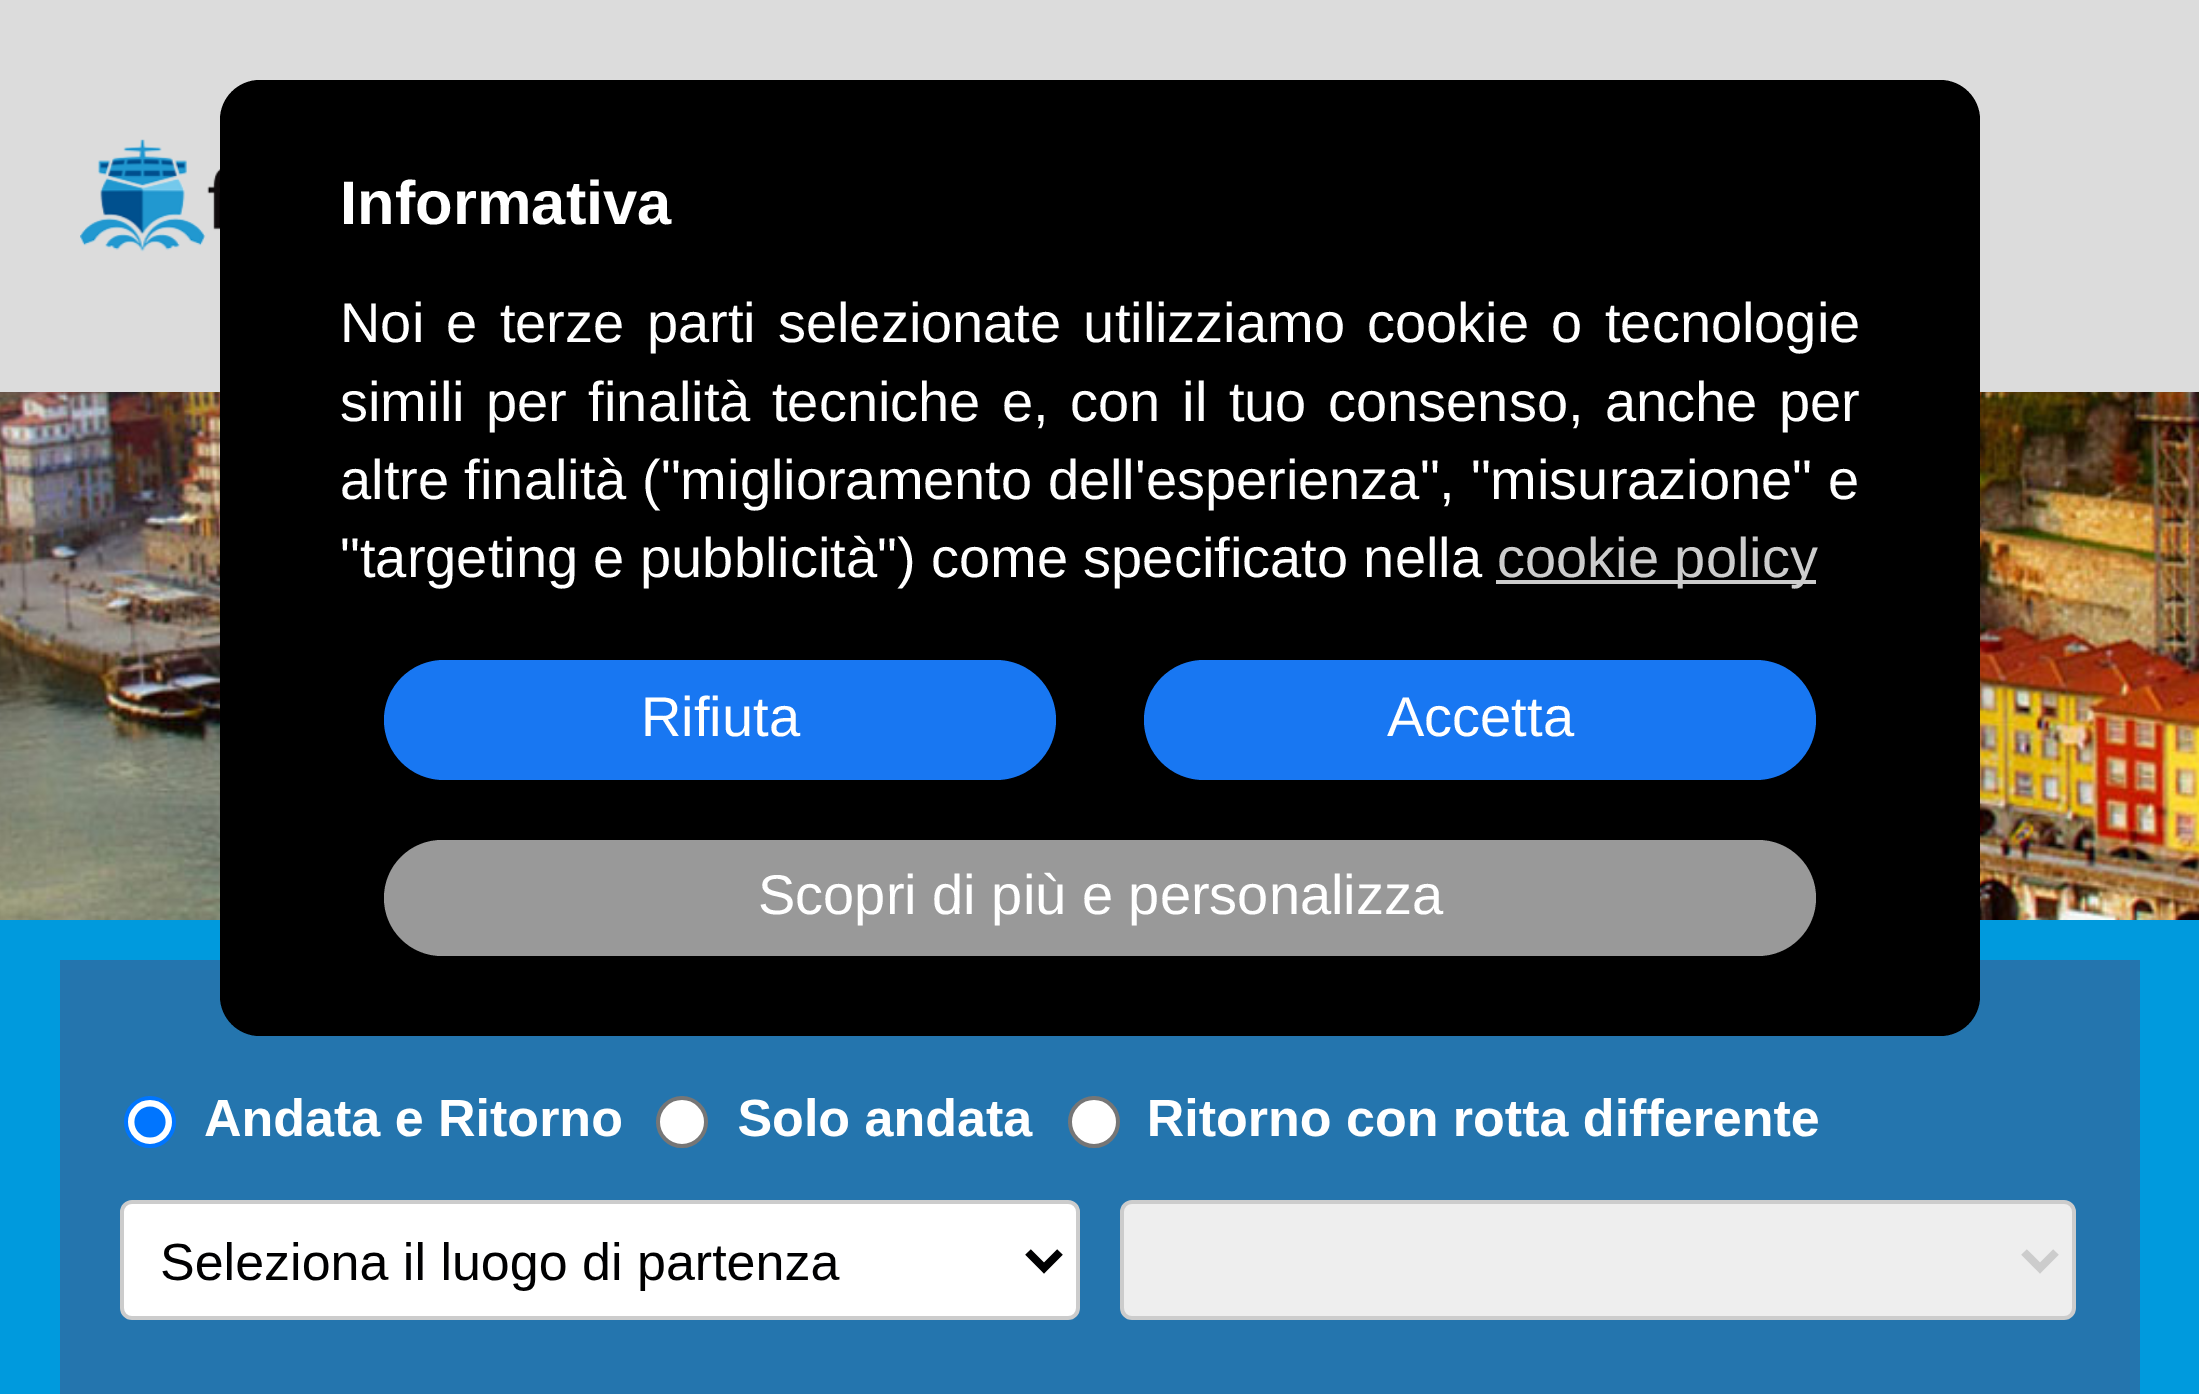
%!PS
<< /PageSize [2199 1394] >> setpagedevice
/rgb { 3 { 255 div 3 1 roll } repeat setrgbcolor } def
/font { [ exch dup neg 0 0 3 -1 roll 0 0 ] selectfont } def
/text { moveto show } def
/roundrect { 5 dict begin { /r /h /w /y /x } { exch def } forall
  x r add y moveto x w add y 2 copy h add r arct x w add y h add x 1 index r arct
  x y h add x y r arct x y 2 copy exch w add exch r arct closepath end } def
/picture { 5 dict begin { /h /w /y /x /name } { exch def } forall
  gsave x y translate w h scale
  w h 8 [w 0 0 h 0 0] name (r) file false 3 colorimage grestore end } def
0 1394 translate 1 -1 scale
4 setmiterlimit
255 255 255 rgb
0 0 2199 1394 rectfill
220 220 220 rgb
0 0 2199 392 rectfill
(img_01.rgb) 80 139 140 113 picture
(img_02.rgb) 0 392 2199 528 picture
0 154 221 rgb
0 920 2199 474 rectfill
36 117 174 rgb
60 960 2080 434 rectfill
0 0 0 rgb
220 80 1760 956 40 roundrect fill
204 204 204 rgb
1496 580 320 4 rectfill
24 119 242 rgb
384 660 672 120 60 roundrect fill
1144 660 672 120 60 roundrect fill
153 153 153 rgb
384 840 1432 116 58 roundrect fill
(img_03.rgb) 120 1096 1956 224 picture
/LiberationSans-Bold 61.5 font
255 255 255 rgb
(Informativa) 340 224 text
/LiberationSans-Regular 56 font
340 342 moveto 6.75 0 32 (Noi e terze parti selezionate utilizziamo cookie o tecnologie) widthshow
340 421 moveto 6 0 32 (simili per finalità tecniche e, con il tuo consenso, anche per) widthshow
(altre finalità \("miglioramento dell'esperienza", "misurazione" e) 340 499 text
("targeting e pubblicità"\) come specificato nella) 340 577 text
204 204 204 rgb
(cookie policy) 1497 577 text
255 255 255 rgb
(Rifiuta) 641 736 text
(Accetta) 1387 736 text
(Scopri di più e personalizza) 758 914 text
showpage
